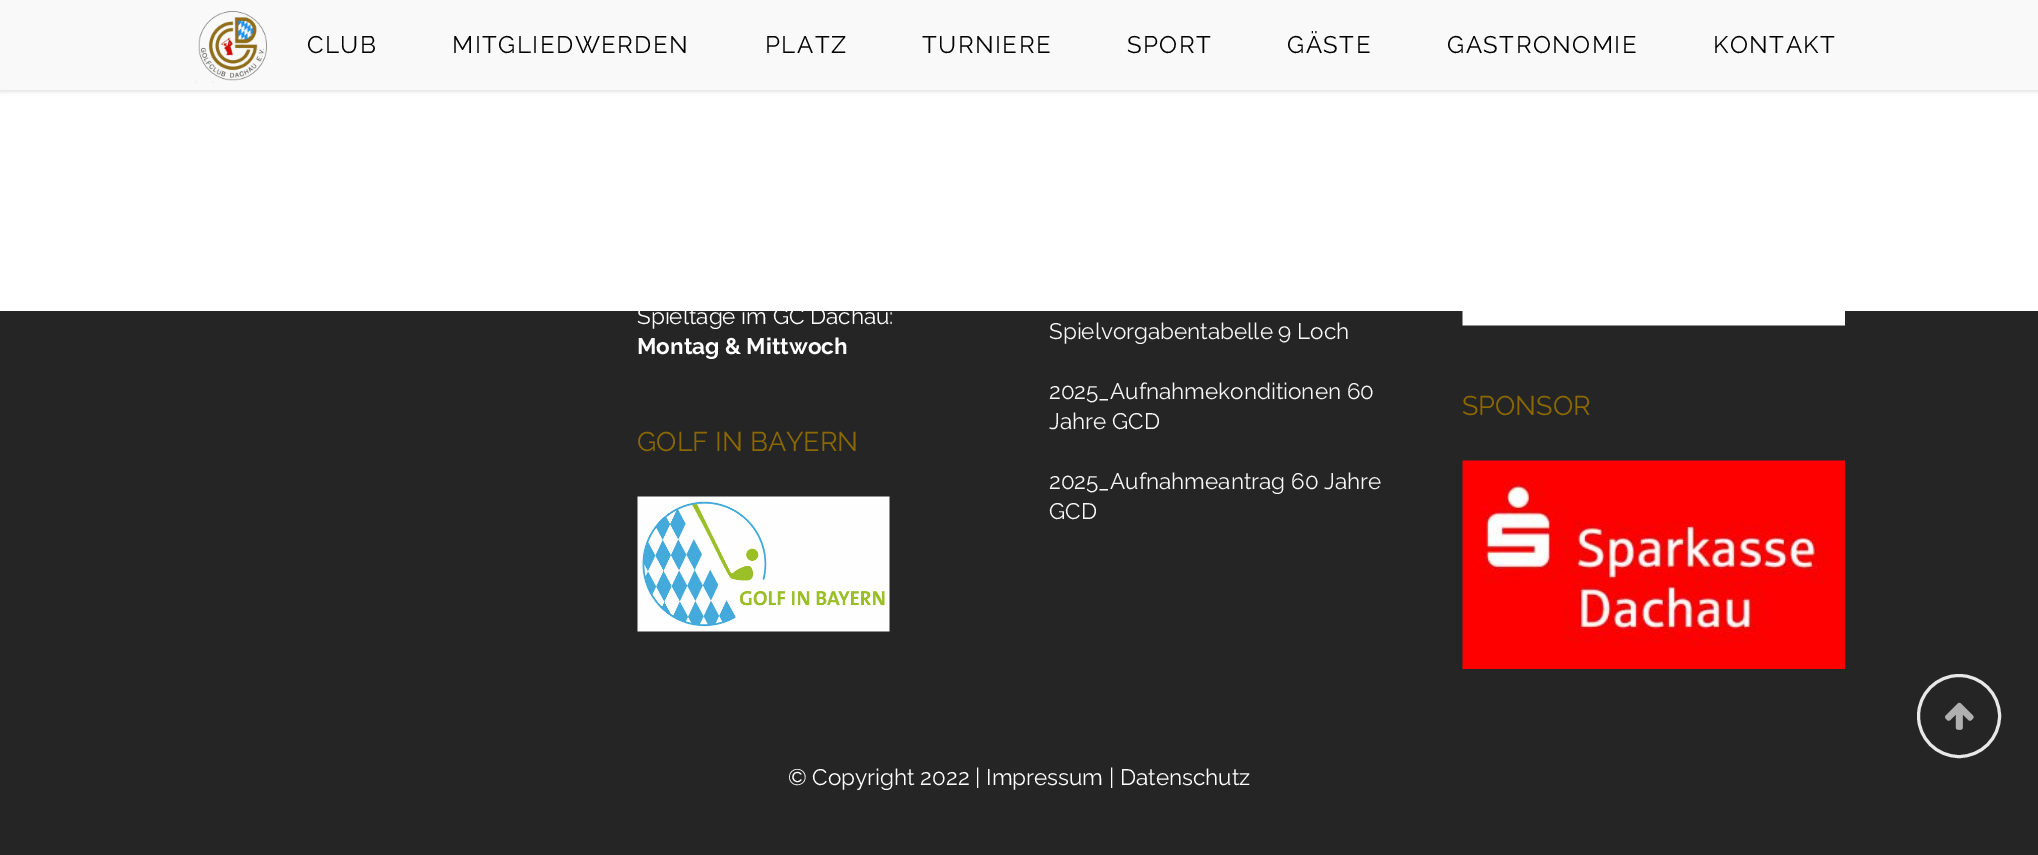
%!PS
<< /PageSize [2038 855] /PageUsesTransparency true >> setpagedevice
/rgb { 3 { 255 div 3 1 roll } repeat setrgbcolor } def
/font { [ exch dup neg 0 0 3 -1 roll 0 0 ] selectfont } def
/text { moveto show } def
/alpha { dup .setfillconstantalpha .setstrokeconstantalpha } def
/circle { newpath 0 360 arc closepath } def
/roundrect { 5 dict begin { /r /h /w /y /x } { exch def } forall
  x r add y moveto x w add y 2 copy h add r arct x w add y h add x 1 index r arct
  x y h add x y r arct x y 2 copy exch w add exch r arct closepath end } def
/shadow { 12 dict begin { /a /b /q /h /w /y /x } { exch def } forall gsave /was 0 def
  9 -2 -9 { dup b mul 4 div /e exch def 1 sub .425 mul 2.718 exch exp 1 add a .99 .min exch div /now exch def
    1 1 now sub 1 was sub div sub alpha /was now def
    w h .min e 2 mul add 0 gt { x e sub y e sub w e 2 mul add h e 2 mul add
      q e add b .6 mul add w h .min 2 div e add .min 0 .max roundrect fill } if } for grestore end } def
/picture { 5 dict begin { /h /w /y /x /name } { exch def } forall
  gsave x y translate w h scale
  w h 8 [w 0 0 h 0 0] name (r) file false 3 colorimage grestore end } def
0 .pushpdf14devicefilter
0 855 translate 1 -1 scale
4 setmiterlimit
37 37 37 rgb
0 0 2038 855 rectfill
255 255 255 rgb
0 90 2038 221 rectfill
0 0 0 rgb
0 2 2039 90 0 2 0.11 shadow
249 249 249 rgb
0 0 2038 90 rectfill
(img_01.rgb) 195 11 72 72 picture
(img_02.rgb) 637 496 253 136 picture
(img_03.rgb) 1462 311 383 15 picture
(img_04.rgb) 1462 460 383 209 picture
232 232 232 rgb
3 setlinewidth
1959 716 40.5 circle stroke
(img_05.rgb) 1945 702 29 28 picture
/Raleway-Regular 24 font
0 0 0 rgb
307 53 moveto 1.5 0 (CLUB) ashow
452 53 moveto 1.5 0 (MITGLIEDWERDEN) ashow
765 53 moveto 1.5 0 (PLATZ) ashow
922 53 moveto 1.5 0 (TURNIERE) ashow
1127 53 moveto 1.5 0 (SPORT) ashow
1287 53 moveto 1.5 0 (GÄSTE) ashow
1447 53 moveto 1.5 0 (GASTRONOMIE) ashow
1713 53 moveto 1.5 0 (KONTAKT) ashow
/Raleway-Regular 22.5 font
255 255 255 rgb
(Spieltage im GC Dachau:) 637 324 text
/Raleway-Bold 22.5 font
(Montag & Mittwoch) 637 354 text
/Raleway-Regular 27 font
140 105 0 rgb
(GOLF IN BAYERN) 637 451 text
/Raleway-Regular 22.5 font
247 247 247 rgb
(Spielvorgabentabelle 9 Loch) 1049 339 text
(2025_Aufnahmekonditionen 60) 1049 399 text
(Jahre GCD) 1049 429 text
(2025_Aufnahmeantrag 60 Jahre) 1049 489 text
(GCD) 1049 519 text
/Raleway-Regular 27 font
140 105 0 rgb
(SPONSOR) 1462 415 text
/Raleway-Regular 22.5 font
255 255 255 rgb
(© Copyright 2022 | Impressum | Datenschutz) 788 785 text
.poppdf14devicefilter showpage
